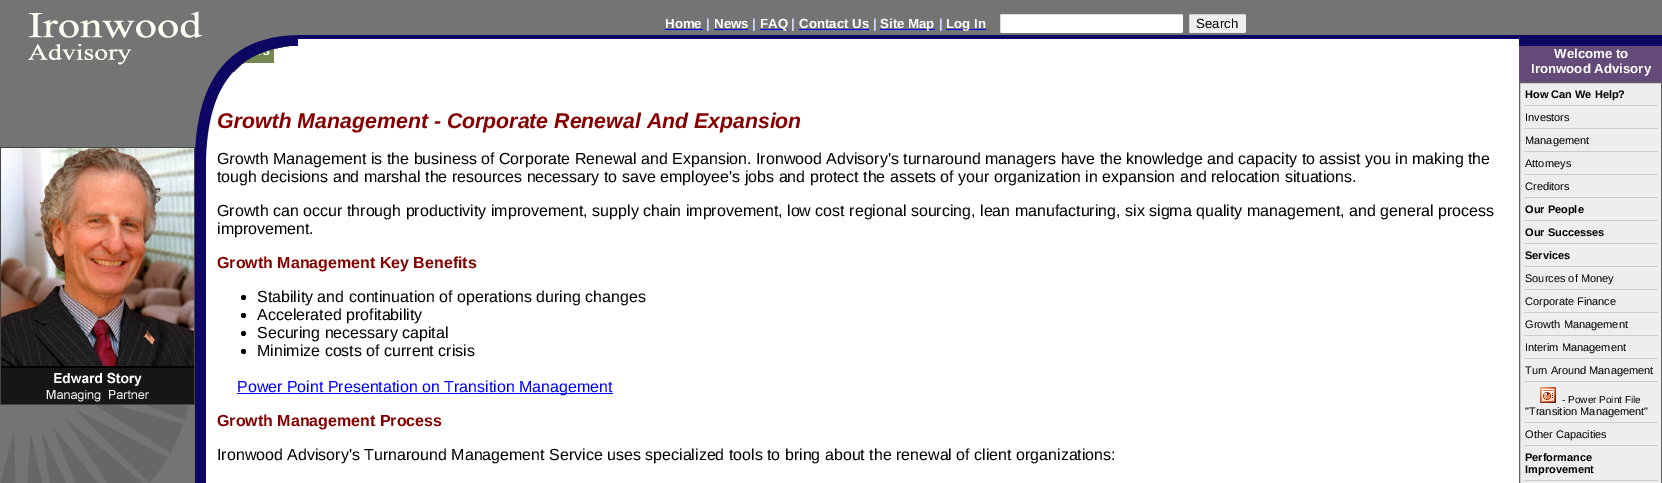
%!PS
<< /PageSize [1662 483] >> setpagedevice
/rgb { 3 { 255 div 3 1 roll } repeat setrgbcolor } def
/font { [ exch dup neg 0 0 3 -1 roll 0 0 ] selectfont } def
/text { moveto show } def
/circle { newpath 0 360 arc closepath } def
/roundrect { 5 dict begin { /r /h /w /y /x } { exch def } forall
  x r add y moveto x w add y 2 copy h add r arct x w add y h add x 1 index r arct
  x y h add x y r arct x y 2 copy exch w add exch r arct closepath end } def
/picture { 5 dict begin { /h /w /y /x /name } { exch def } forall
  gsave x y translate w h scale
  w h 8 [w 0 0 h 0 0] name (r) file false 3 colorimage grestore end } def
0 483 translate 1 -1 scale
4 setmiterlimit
255 255 255 rgb
0 0 1662 483 rectfill
(img_01.rgb) 0 160 206 323 picture
(img_03.rgb) 0 0 1662 46 picture
0 0 255 rgb
665 29 38 1 rectfill
714 29 34 1 rectfill
760 29 28 1 rectfill
799 29 70 1 rectfill
880 29 55 1 rectfill
946 29 40 1 rectfill
255 255 255 rgb
999.5 13.5 184 20 1.5 roundrect gsave fill grestore
118 118 118 rgb
stroke
239 239 239 rgb
1188.5 13.5 58 20 1.5 roundrect gsave fill grestore
118 118 118 rgb
stroke
255 255 255 rgb
274 39 1245 7 rectfill
115 137 81 rgb
245 50 29 13 rectfill
99 74 121 rgb
1519 46 143 36 rectfill
238 238 238 rgb
1519.5 82.5 moveto 142 0 rlineto 0 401 rlineto -142 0 rlineto closepath gsave fill grestore
96 96 96 rgb
stroke
204 204 204 rgb
1524 105 134 1 rectfill
1524 128 134 1 rectfill
1524 151 134 1 rectfill
1524 174 134 1 rectfill
1524 197 134 1 rectfill
1524 220 134 1 rectfill
1524 243 134 1 rectfill
1524 266 134 1 rectfill
1524 289 134 1 rectfill
1524 312 134 1 rectfill
1524 335 134 1 rectfill
1524 358 134 1 rectfill
1524 381 134 1 rectfill
(img_04.rgb) 1540 387 16 16 picture
1524 422 134 1 rectfill
1524 445 134 1 rectfill
1524 480 134 1 rectfill
0 0 0 rgb
243.5 297.5 2.5 circle fill
243.5 315.5 2.5 circle fill
243.5 333.5 2.5 circle fill
243.5 351.5 2.5 circle fill
0 0 255 rgb
237 393 376 1 rectfill
(img_06.rgb) 0 405 189 78 picture
/LiberationSans-Bold 13.25 font
255 255 255 rgb
(Home) 665 28 text
204 218 255 rgb
(|) 706 28 text
255 255 255 rgb
(News) 714 28 text
204 218 255 rgb
(|) 752 28 text
255 255 255 rgb
(FAQ) 760 28 text
204 218 255 rgb
(|) 791 28 text
255 255 255 rgb
(Contact Us) 799 28 text
204 218 255 rgb
(|) 873 28 text
255 255 255 rgb
(Site Map) 880 28 text
204 218 255 rgb
(|) 939 28 text
255 255 255 rgb
(Log In) 946 28 text
/LiberationSans-Regular 13.25 font
0 0 0 rgb
(Search) 1196 28 text
/LiberationSans-Bold 13.25 font
255 255 255 rgb
(Welcome to) 1554 58 text
(Ironwood Advisory) 1531 73 text
/LiberationSans-Bold 11 font
0 0 0 rgb
(How Can We Help?) 1525 98 text
/LiberationSans-Regular 11 font
(Investors) 1525 121 text
(Management) 1525 144 text
(Attorneys) 1525 167 text
(Creditors) 1525 190 text
/LiberationSans-Bold 11 font
(Our People) 1525 213 text
(Our Successes) 1525 236 text
(Services) 1525 259 text
/LiberationSans-Regular 11 font
(Sources of Money) 1525 282 text
(Corporate Finance) 1525 305 text
(Growth Management) 1525 328 text
(Interim Management) 1525 351 text
(Turn Around Management) 1525 374 text
/LiberationSans-Regular 10 font
(- Power Point File) 1562 403 text
/LiberationSans-Regular 11 font
("Transition Management") 1525 415 text
(Other Capacities) 1525 438 text
/LiberationSans-Bold 11 font
(Performance) 1525 461 text
(Improvement) 1525 473 text
/LiberationSans-BoldItalic 21.3 font
135 0 0 rgb
(Growth Management - Corporate Renewal And Expansion) 217 128 text
/LiberationSans-Regular 16 font
0 0 0 rgb
(Growth Management is the business of Corporate Renewal and Expansion. Ironwood Advisory's turnaround managers have the knowledge and capacity to assist you in making the) 217 164 text
(img_02.rgb) 0 11 298 149 picture
69 69 69 rgb
0 147 195 258 rectfill
(img_05.rgb) 1 148 193 256 picture
0 0 0 rgb
(tough decisions and marshal the resources necessary to save employee's jobs and protect the assets of your organization in expansion and relocation situations.) 217 182 text
(Growth can occur through productivity improvement, supply chain improvement, low cost regional sourcing, lean manufacturing, six sigma quality management, and general process) 217 216 text
(improvement.) 217 234 text
/LiberationSans-Bold 16 font
135 0 0 rgb
(Growth Management Key Benefits) 217 268 text
/LiberationSans-Regular 16 font
0 0 0 rgb
(Stability and continuation of operations during changes) 257 302 text
(Accelerated profitability) 257 320 text
(Securing necessary capital) 257 338 text
(Minimize costs of current crisis) 257 356 text
0 0 255 rgb
(Power Point Presentation on Transition Management) 237 392 text
/LiberationSans-Bold 16 font
135 0 0 rgb
(Growth Management Process) 217 426 text
/LiberationSans-Regular 16 font
0 0 0 rgb
(Ironwood Advisory's Turnaround Management Service uses specialized tools to bring about the renewal of client organizations:) 217 460 text
showpage
